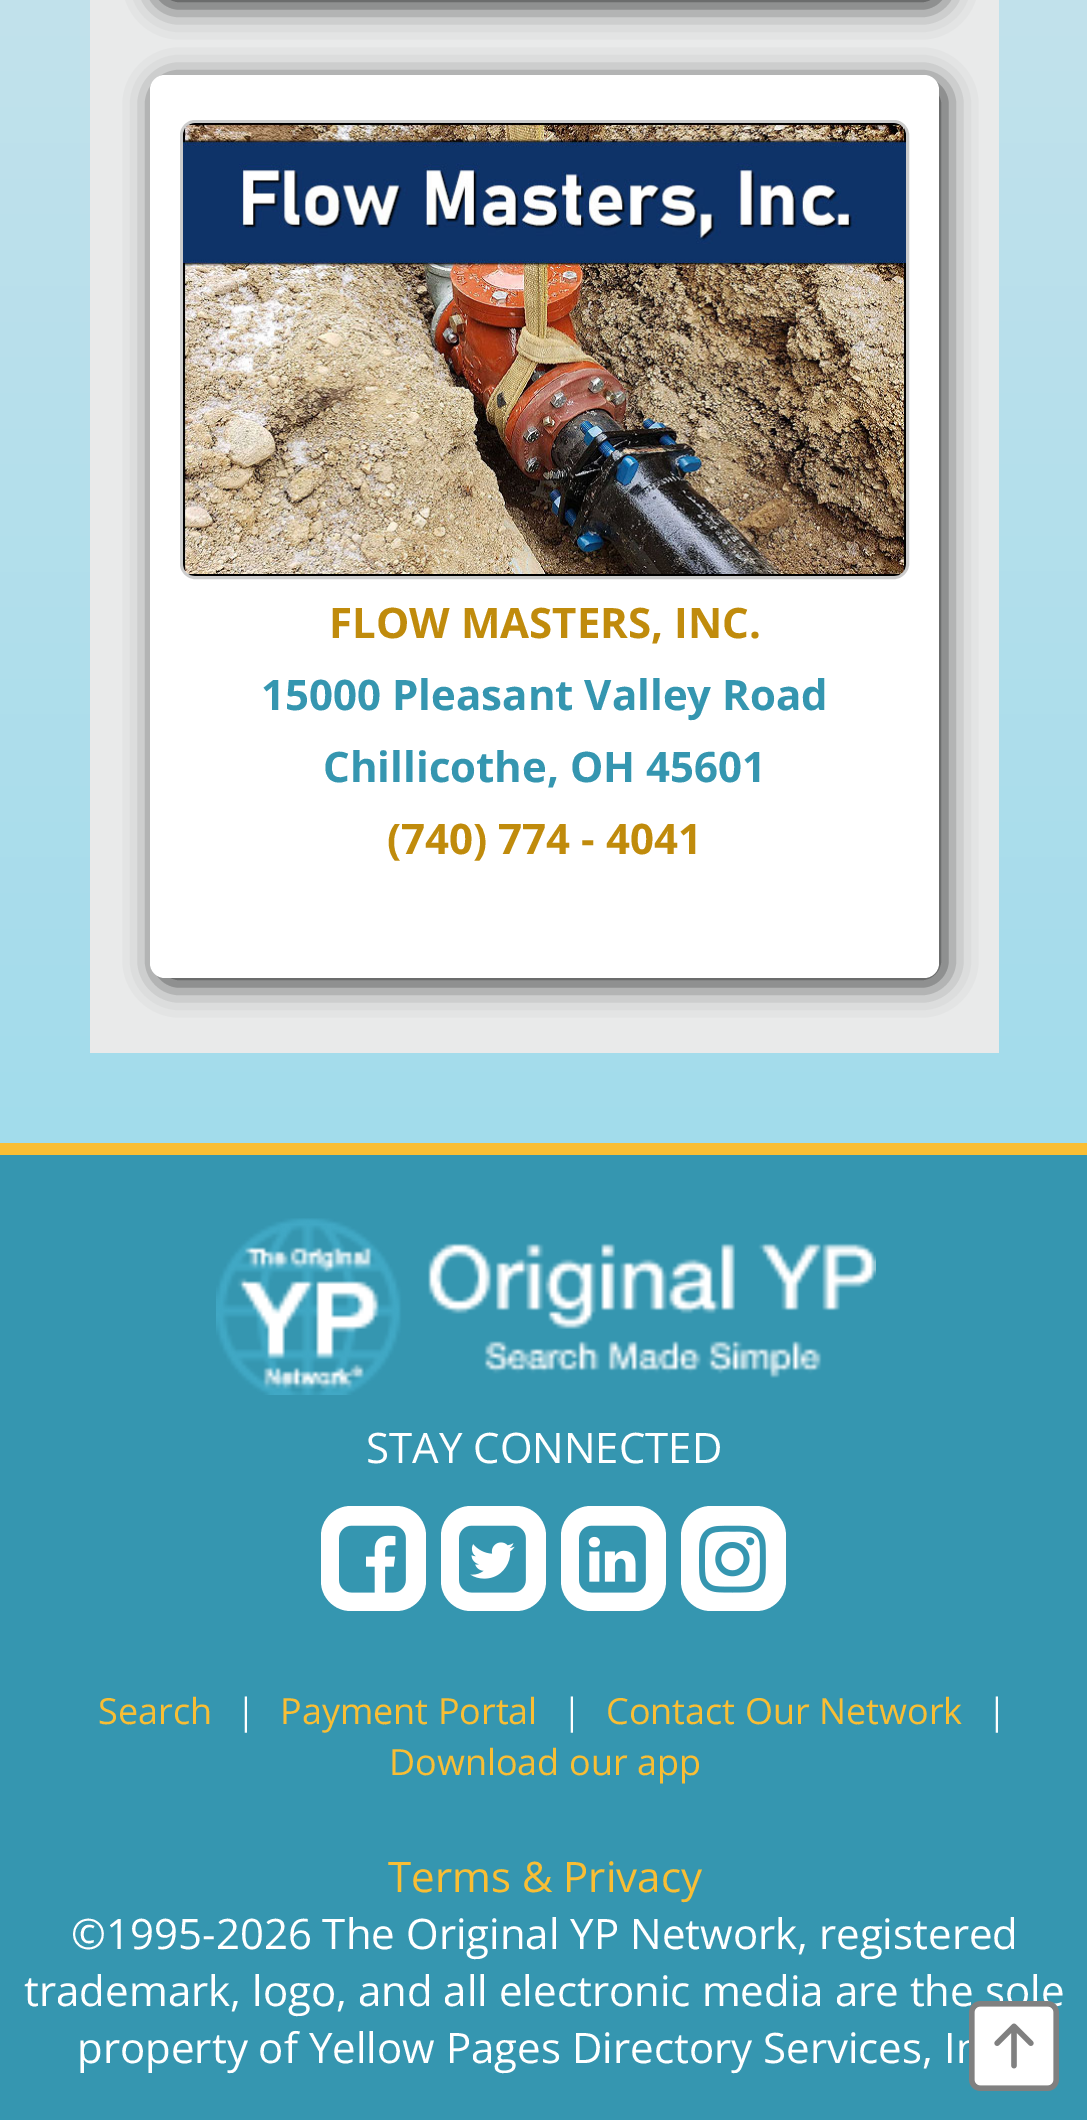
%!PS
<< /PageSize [1087 2120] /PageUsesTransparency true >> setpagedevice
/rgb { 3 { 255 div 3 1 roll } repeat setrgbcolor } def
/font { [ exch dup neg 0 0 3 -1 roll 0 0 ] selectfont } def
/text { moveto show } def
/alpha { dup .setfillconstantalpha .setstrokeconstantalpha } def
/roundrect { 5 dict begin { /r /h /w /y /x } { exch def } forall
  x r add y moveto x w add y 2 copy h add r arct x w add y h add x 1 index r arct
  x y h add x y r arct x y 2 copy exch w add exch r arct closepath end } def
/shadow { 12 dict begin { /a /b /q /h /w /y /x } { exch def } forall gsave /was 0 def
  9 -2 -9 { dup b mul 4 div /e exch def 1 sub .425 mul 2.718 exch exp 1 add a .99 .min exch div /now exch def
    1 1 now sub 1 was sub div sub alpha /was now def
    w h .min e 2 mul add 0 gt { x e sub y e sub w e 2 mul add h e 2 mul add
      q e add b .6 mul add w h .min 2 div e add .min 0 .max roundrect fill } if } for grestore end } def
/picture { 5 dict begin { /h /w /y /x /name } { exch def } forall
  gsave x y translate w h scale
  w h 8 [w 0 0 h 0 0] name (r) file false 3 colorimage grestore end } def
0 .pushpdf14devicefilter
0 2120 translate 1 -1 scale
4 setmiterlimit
255 255 255 rgb
0 0 1087 2120 rectfill
gsave 0 0 moveto 1087 0 rlineto 0 1143 rlineto -1087 0 rlineto closepath clip newpath
<< /ShadingType 2 /ColorSpace /DeviceRGB /Coords [544 -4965 545 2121] /Extend [true true] /Function << /FunctionType 3 /Domain [0 1] /Functions [<< /FunctionType 2 /Domain [0 1] /C0 [1 0.855 0.522] /C1 [0.914 0.918 0.918] /N 1 >> << /FunctionType 2 /Domain [0 1] /C0 [0.914 0.918 0.918] /C1 [0.529 0.839 0.925] /N 1 >>] /Bounds [0.5] /Encode [0 1 0 1] >> >> shfill grestore
233 234 234 rgb
90 0 909 1053 rectfill
51 51 51 rgb
156 -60 789 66 15 15 1 shadow
156 81 789 903 15 15 1 shadow
255 255 255 rgb
150 75 789 903 15 roundrect fill
204 204 204 rgb
3 setlinewidth
181.5 121.5 726 456 13.5 roundrect stroke
(img_01.rgb) 183 123 723 453 picture
53 150 176 rgb
0 1155 1087 965 rectfill
249 190 52 rgb
0 1143 1087 12 rectfill
(img_02.rgb) 216 1218 660 177 picture
255 255 255 rgb
321 1506 105 105 30 roundrect fill
(img_03.rgb) 339 1525 67 68 picture
441 1506 105 105 30 roundrect fill
(img_04.rgb) 459 1525 67 68 picture
561 1506 105 105 30 roundrect fill
(img_05.rgb) 579 1525 67 68 picture
681 1506 105 105 30 roundrect fill
(img_06.rgb) 699 1525 67 68 picture
969 2001 90 90 24 roundrect fill
/OpenSans-Bold 42 font
192 139 12 rgb
(FLOW MASTERS, INC.) 329 638 text
53 150 176 rgb
(15000 Pleasant Valley Road) 261 710 text
(Chillicothe, OH 45601) 323 782 text
192 139 12 rgb
(\(740\) 774 - 4041) 387 854 text
/OpenSans-Regular 42 font
255 255 255 rgb
(STAY CONNECTED) 366 1463 text
/OpenSans-Regular 36 font
249 190 52 rgb
(Search) 98 1724 text
255 255 255 rgb
(|) 236 1724 text
249 190 52 rgb
(Payment Portal) 280 1724 text
255 255 255 rgb
(|) 562 1724 text
249 190 52 rgb
(Contact Our Network) 606 1724 text
255 255 255 rgb
(|) 987 1724 text
249 190 52 rgb
(Download our app) 389 1775 text
/OpenSans-Regular 42 font
(Terms & Privacy) 388 1892 text
255 255 255 rgb
(©1995-2026 The Original YP Network, registered) 71 1949 text
(trademark, logo, and all electronic media are the sole) 24 2006 text
(property of Yellow Pages Directory Services, In) 77 2063 text
(img_07.rgb) 969 2001 90 90 picture
.poppdf14devicefilter showpage
